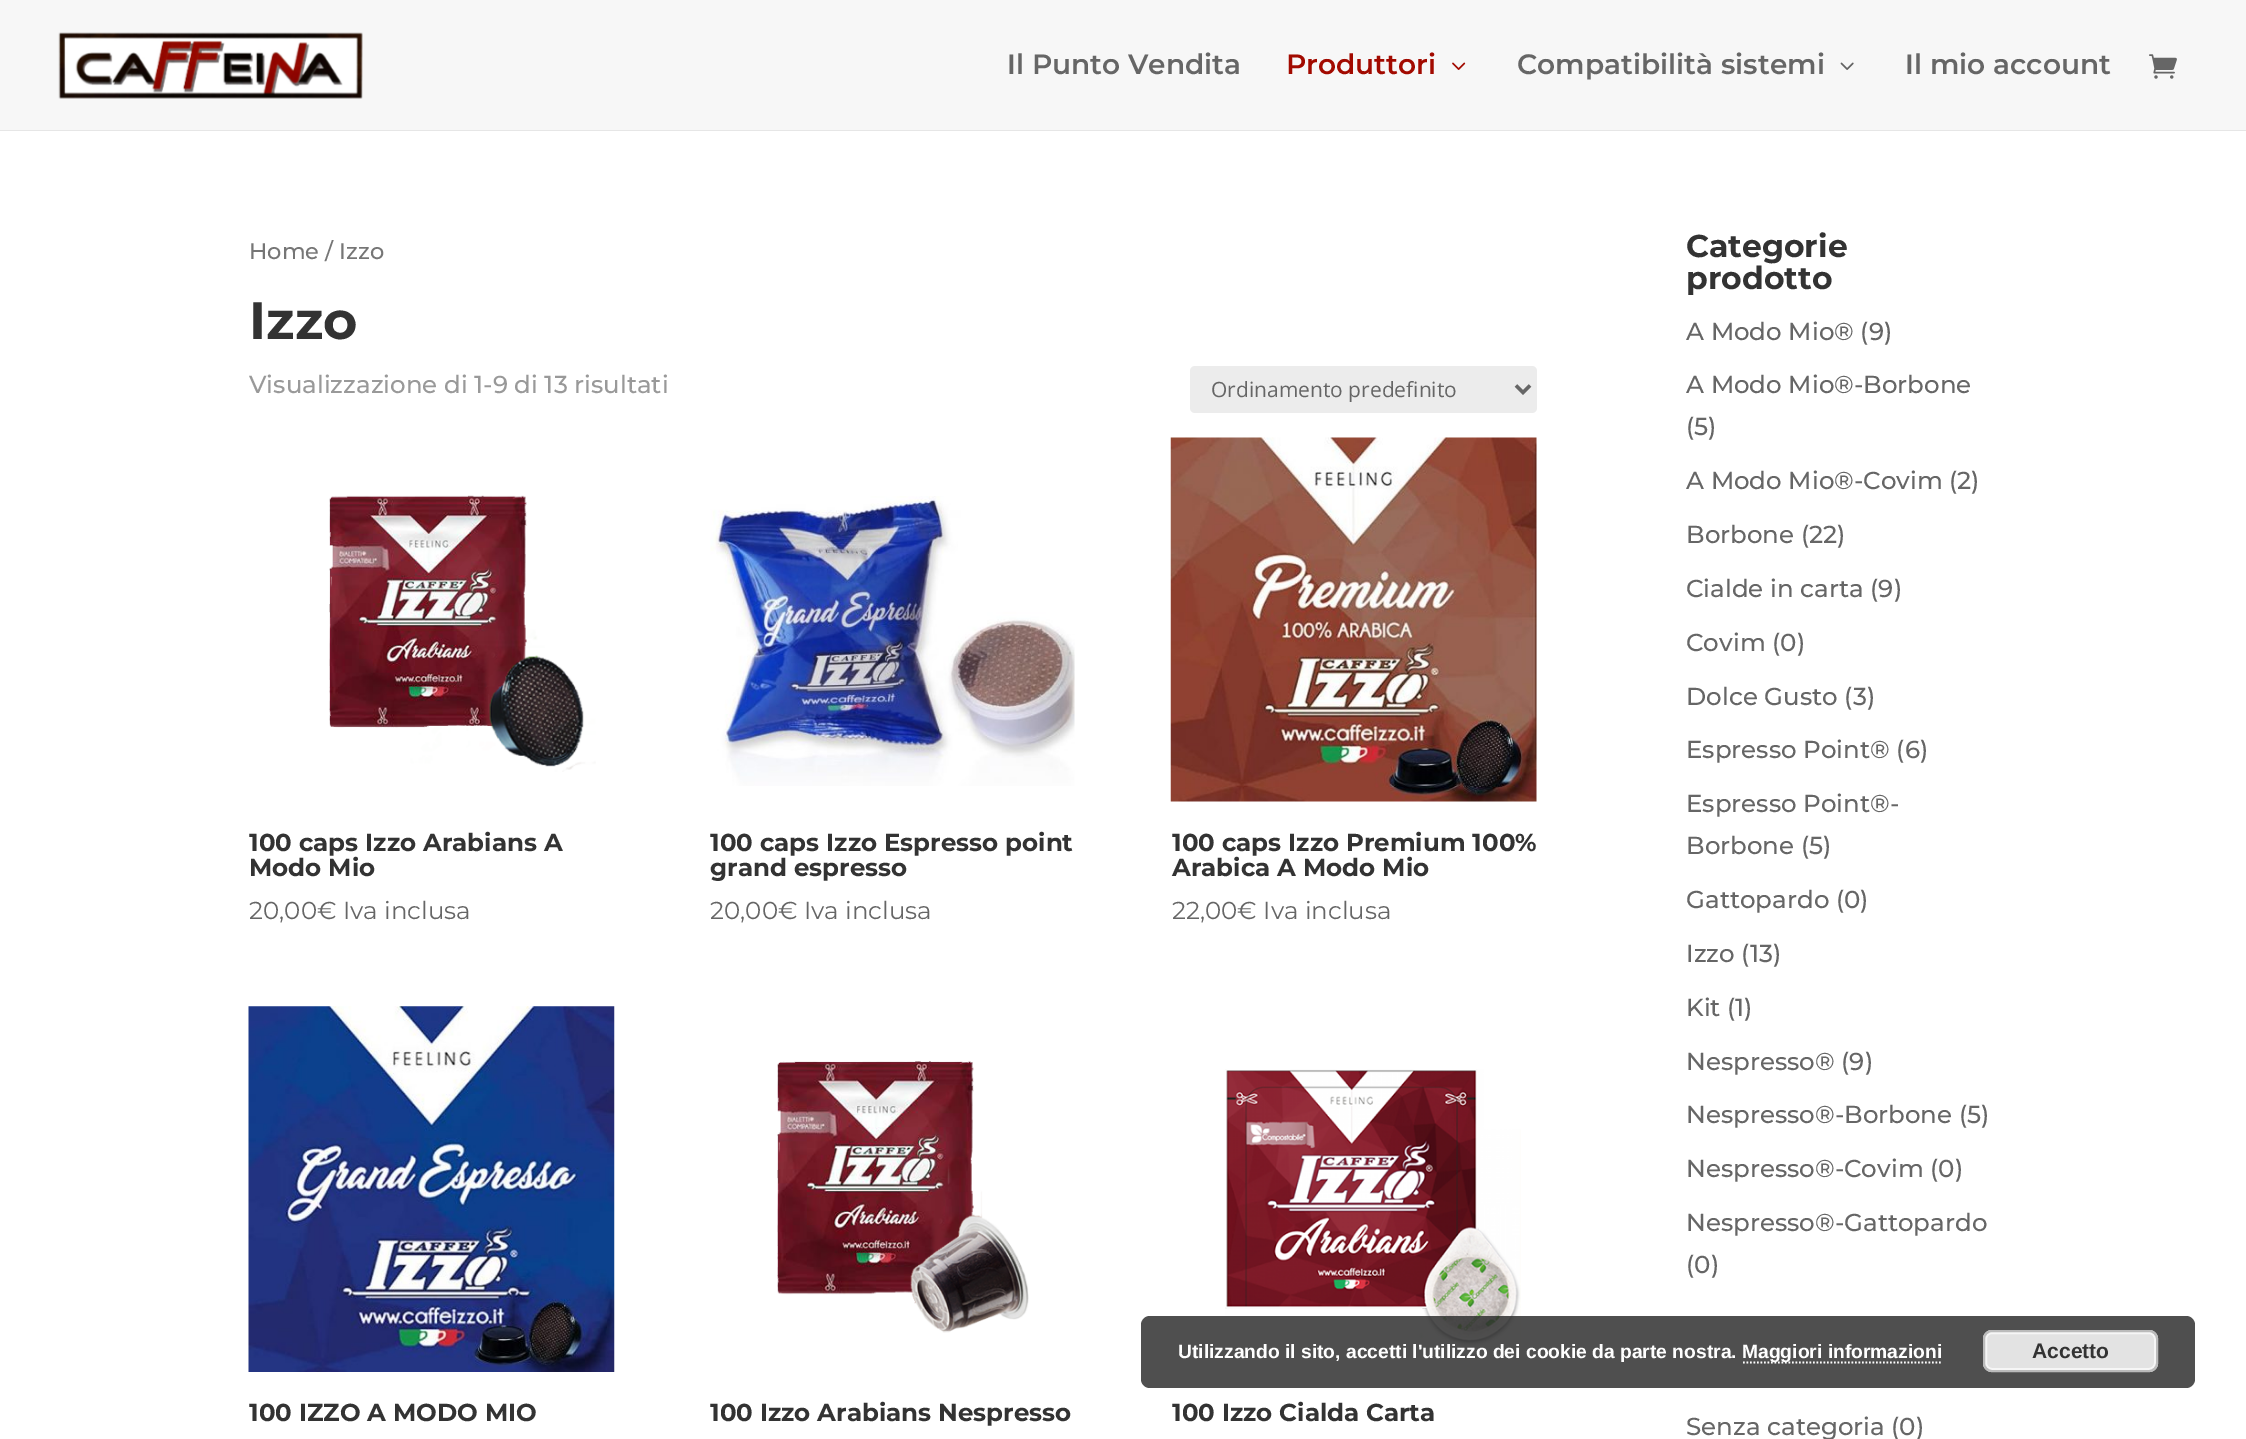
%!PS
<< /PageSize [2246 1439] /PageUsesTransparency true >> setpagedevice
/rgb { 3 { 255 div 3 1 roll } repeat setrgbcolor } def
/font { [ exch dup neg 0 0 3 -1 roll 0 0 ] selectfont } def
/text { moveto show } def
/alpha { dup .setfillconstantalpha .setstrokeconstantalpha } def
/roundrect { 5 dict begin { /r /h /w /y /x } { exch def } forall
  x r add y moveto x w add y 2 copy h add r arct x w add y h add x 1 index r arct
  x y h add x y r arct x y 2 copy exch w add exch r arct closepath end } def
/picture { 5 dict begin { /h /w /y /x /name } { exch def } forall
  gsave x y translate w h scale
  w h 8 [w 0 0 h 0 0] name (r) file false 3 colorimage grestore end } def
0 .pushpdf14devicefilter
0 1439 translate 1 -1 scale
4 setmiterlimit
255 255 255 rgb
0 0 2246 1439 rectfill
230 230 230 rgb
0 130 2246 1 rectfill
247 247 247 rgb
0 0 2246 130 rectfill
(img_01.rgb) 58 32 305 67 picture
(img_02.rgb) 1452 62 14 8 picture
(img_03.rgb) 1840 62 14 8 picture
(img_04.rgb) 2149 54 28 25 picture
236 236 236 rgb
1190 366 347 47 5 roundrect fill
102 102 102 rgb
3.5 setlinewidth
1516 385.5 moveto 7 7 rlineto 7 -7 rlineto stroke
(img_05.rgb) 329 495 267 277 picture
(img_06.rgb) 710 496 365 290 picture
(img_07.rgb) 1170 437 367 365 picture
(img_08.rgb) 248 1006 367 366 picture
(img_09.rgb) 777 1061 252 272 picture
(img_10.rgb) 1225 1069 296 278 picture
0.85 alpha
48 48 48 rgb
1141 1316 1054 72 9 roundrect fill
1 alpha
255 255 255 rgb
1.8 setlinewidth
[1.75 1.75] 0 setdash
1743 1362.5 moveto 199.5 0 rlineto stroke
227 227 227 rgb
1983 1330 175 42 9 roundrect fill
246 246 246 rgb
2 setlinewidth
[] 0 setdash
1986 1333 169 36 6 roundrect stroke
187 187 187 rgb
1984 1331 173 40 8 roundrect stroke
/Montserrat-SemiBold 28 font
102 102 102 rgb
(Il Punto Vendita) 1007 74 text
162 10 0 rgb
(Produttori) 1286 74 text
102 102 102 rgb
(Compatibilità sistemi) 1517 74 text
(Il mio account) 1905 74 text
/Montserrat-Medium 22.5 font
118 118 118 rgb
(Home / Izzo) 249 259 text
/Montserrat-Bold 52.5 font
51 51 51 rgb
(Izzo) 249 339 text
/Montserrat-Medium 24.5 font
153 153 153 rgb
(Visualizzazione di 1-9 di 13 risultati) 249 393 text
/OpenSans-Regular 21 font
102 102 102 rgb
(Ordinamento predefinito) 1211 397 text
/Montserrat-Bold 24.5 font
51 51 51 rgb
(100 caps Izzo Arabians A) 249 851 text
(Modo Mio) 249 876 text
/Montserrat-Regular 24.5 font
102 102 102 rgb
(20,00€ Iva inclusa) 249 919 text
/Montserrat-Bold 24.5 font
51 51 51 rgb
(100 caps Izzo Espresso point) 710 851 text
(grand espresso) 710 876 text
/Montserrat-Regular 24.5 font
102 102 102 rgb
(20,00€ Iva inclusa) 710 919 text
/Montserrat-Bold 24.5 font
51 51 51 rgb
(100 caps Izzo Premium 100%) 1172 851 text
(Arabica A Modo Mio) 1172 876 text
/Montserrat-Regular 24.5 font
102 102 102 rgb
(22,00€ Iva inclusa) 1172 919 text
/Montserrat-Bold 24.5 font
51 51 51 rgb
(100 IZZO A MODO MIO) 249 1421 text
(100 Izzo Arabians Nespresso) 710 1421 text
(100 Izzo Cialda Carta) 1172 1421 text
/Montserrat-Bold 31.5 font
(Categorie) 1686 257 text
(prodotto) 1686 289 text
/Montserrat-Medium 24.5 font
102 102 102 rgb
(A Modo Mio® \(9\)) 1686 340 text
(A Modo Mio®-Borbone) 1686 393 text
(\(5\)) 1686 435 text
(A Modo Mio®-Covim \(2\)) 1686 489 text
(Borbone \(22\)) 1686 543 text
(Cialde in carta \(9\)) 1686 597 text
(Covim \(0\)) 1686 651 text
(Dolce Gusto \(3\)) 1686 705 text
(Espresso Point® \(6\)) 1686 758 text
(Espresso Point®-) 1686 812 text
(Borbone \(5\)) 1686 854 text
(Gattopardo \(0\)) 1686 908 text
(Izzo \(13\)) 1686 962 text
(Kit \(1\)) 1686 1016 text
(Nespresso® \(9\)) 1686 1070 text
(Nespresso®-Borbone \(5\)) 1686 1123 text
(Nespresso®-Covim \(0\)) 1686 1177 text
(Nespresso®-Gattopardo) 1686 1231 text
(\(0\)) 1686 1273 text
(Senza categoria \(0\)) 1686 1435 text
/LiberationSans-Bold 19.25 font
255 255 255 rgb
(Utilizzando il sito, accetti l'utilizzo dei cookie da parte nostra.) 1178 1358 text
(Maggiori informazioni) 1742 1358 text
/LiberationSans-Bold 21 font
51 51 51 rgb
(Accetto) 2032 1358 text
.poppdf14devicefilter showpage
